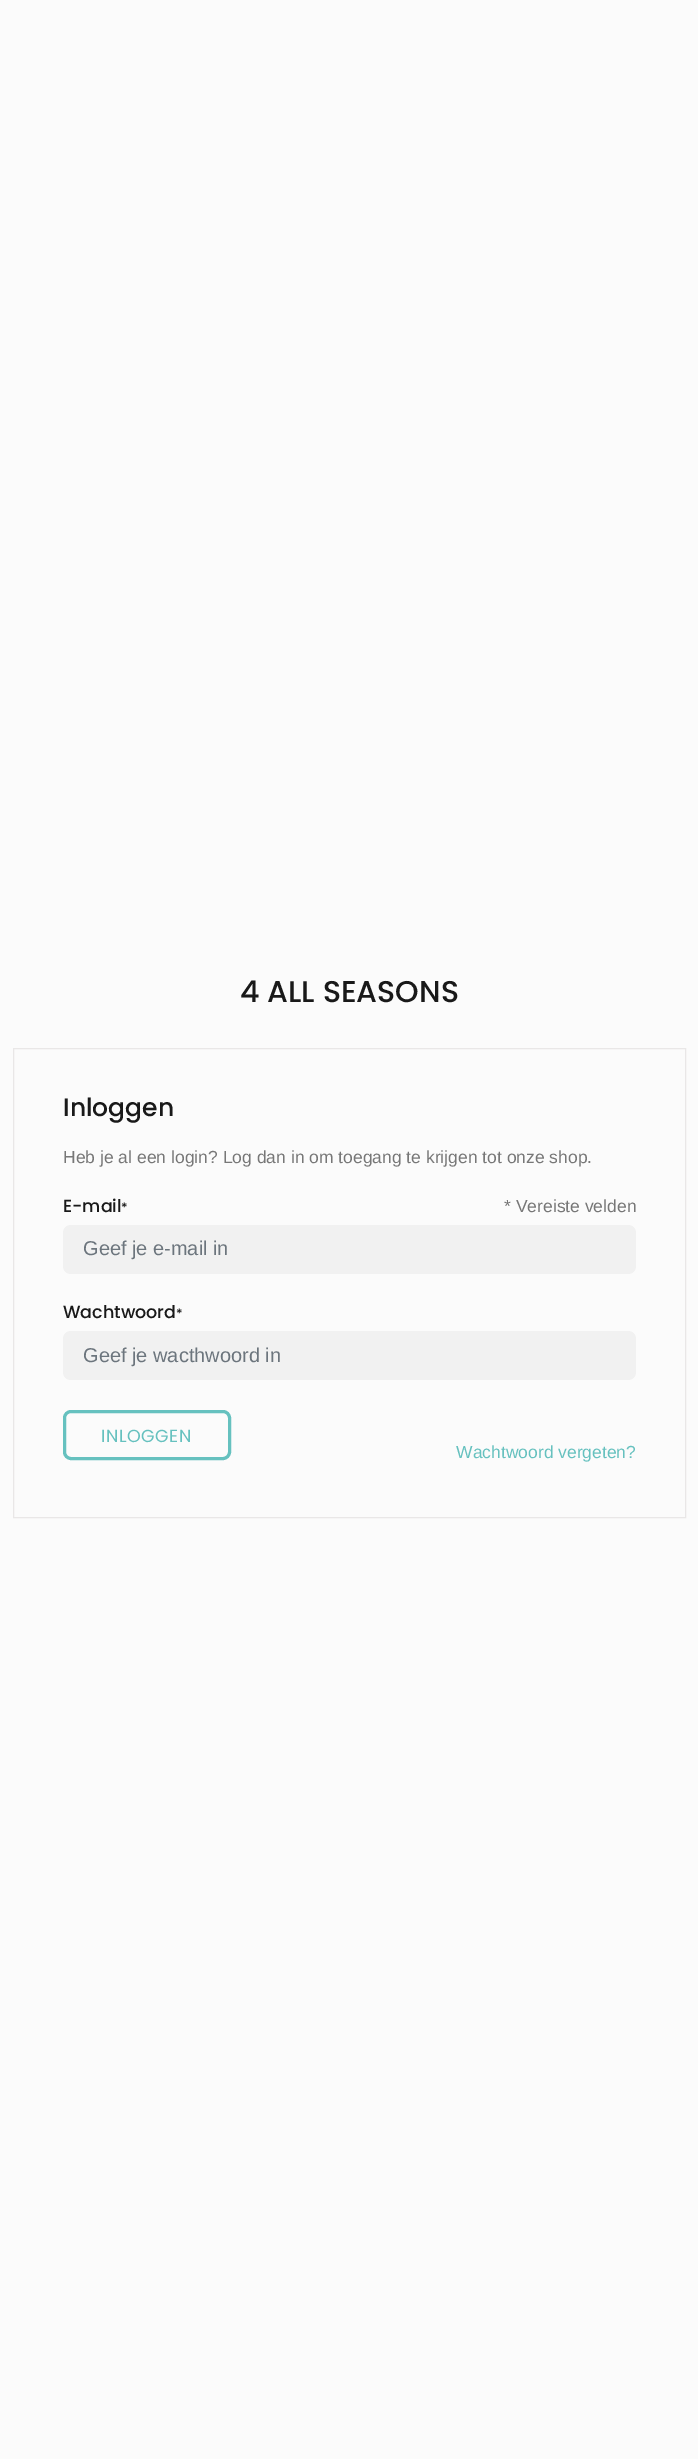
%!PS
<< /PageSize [698 2459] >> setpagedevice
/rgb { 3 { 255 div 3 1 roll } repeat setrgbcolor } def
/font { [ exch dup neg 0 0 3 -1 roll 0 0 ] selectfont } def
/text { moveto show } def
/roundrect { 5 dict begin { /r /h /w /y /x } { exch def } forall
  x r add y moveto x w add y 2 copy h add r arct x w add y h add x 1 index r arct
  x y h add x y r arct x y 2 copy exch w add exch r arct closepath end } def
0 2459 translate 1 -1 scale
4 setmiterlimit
251 251 251 rgb
0 0 698 2459 rectfill
233 231 231 rgb
13.5 1048.5 672 469 rectstroke
241 241 241 rgb
63 1225 573 49 8 roundrect fill
63 1331 573 49 8 roundrect fill
102 193 191 rgb
3 setlinewidth
64.5 1411.5 165 47 6.5 roundrect stroke
/Poppins-Medium 30 font
25 25 25 rgb
(4 ALL SEASONS) 240 1002 text
/Poppins-Medium 25 font
(Inloggen) 63 1116 text
/LiberationSans-Regular 17.5 font
119 119 119 rgb
(Heb je al een login? Log dan in om toegang te krijgen tot onze shop.) 63 1163 text
/Poppins-Medium 17.5 font
25 25 25 rgb
(E-mail) 63 1212 text
/Poppins-Medium 13 font
(*) 121 1212 text
/LiberationSans-Regular 17.5 font
119 119 119 rgb
(* Vereiste velden) 504 1212 text
/LiberationSans-Regular 20 font
108 117 125 rgb
(Geef je e-mail in) 83 1255 text
/Poppins-Medium 17.5 font
25 25 25 rgb
(Wachtwoord) 63 1318 text
/Poppins-Medium 13 font
(*) 176 1318 text
/LiberationSans-Regular 20 font
108 117 125 rgb
(Geef je wacthwoord in) 83 1362 text
/Poppins-Regular 17.5 font
102 193 191 rgb
101 1442 moveto 0.5 0 (INLOGGEN) ashow
/LiberationSans-Regular 17.5 font
(Wachtwoord vergeten?) 456 1458 text
showpage
